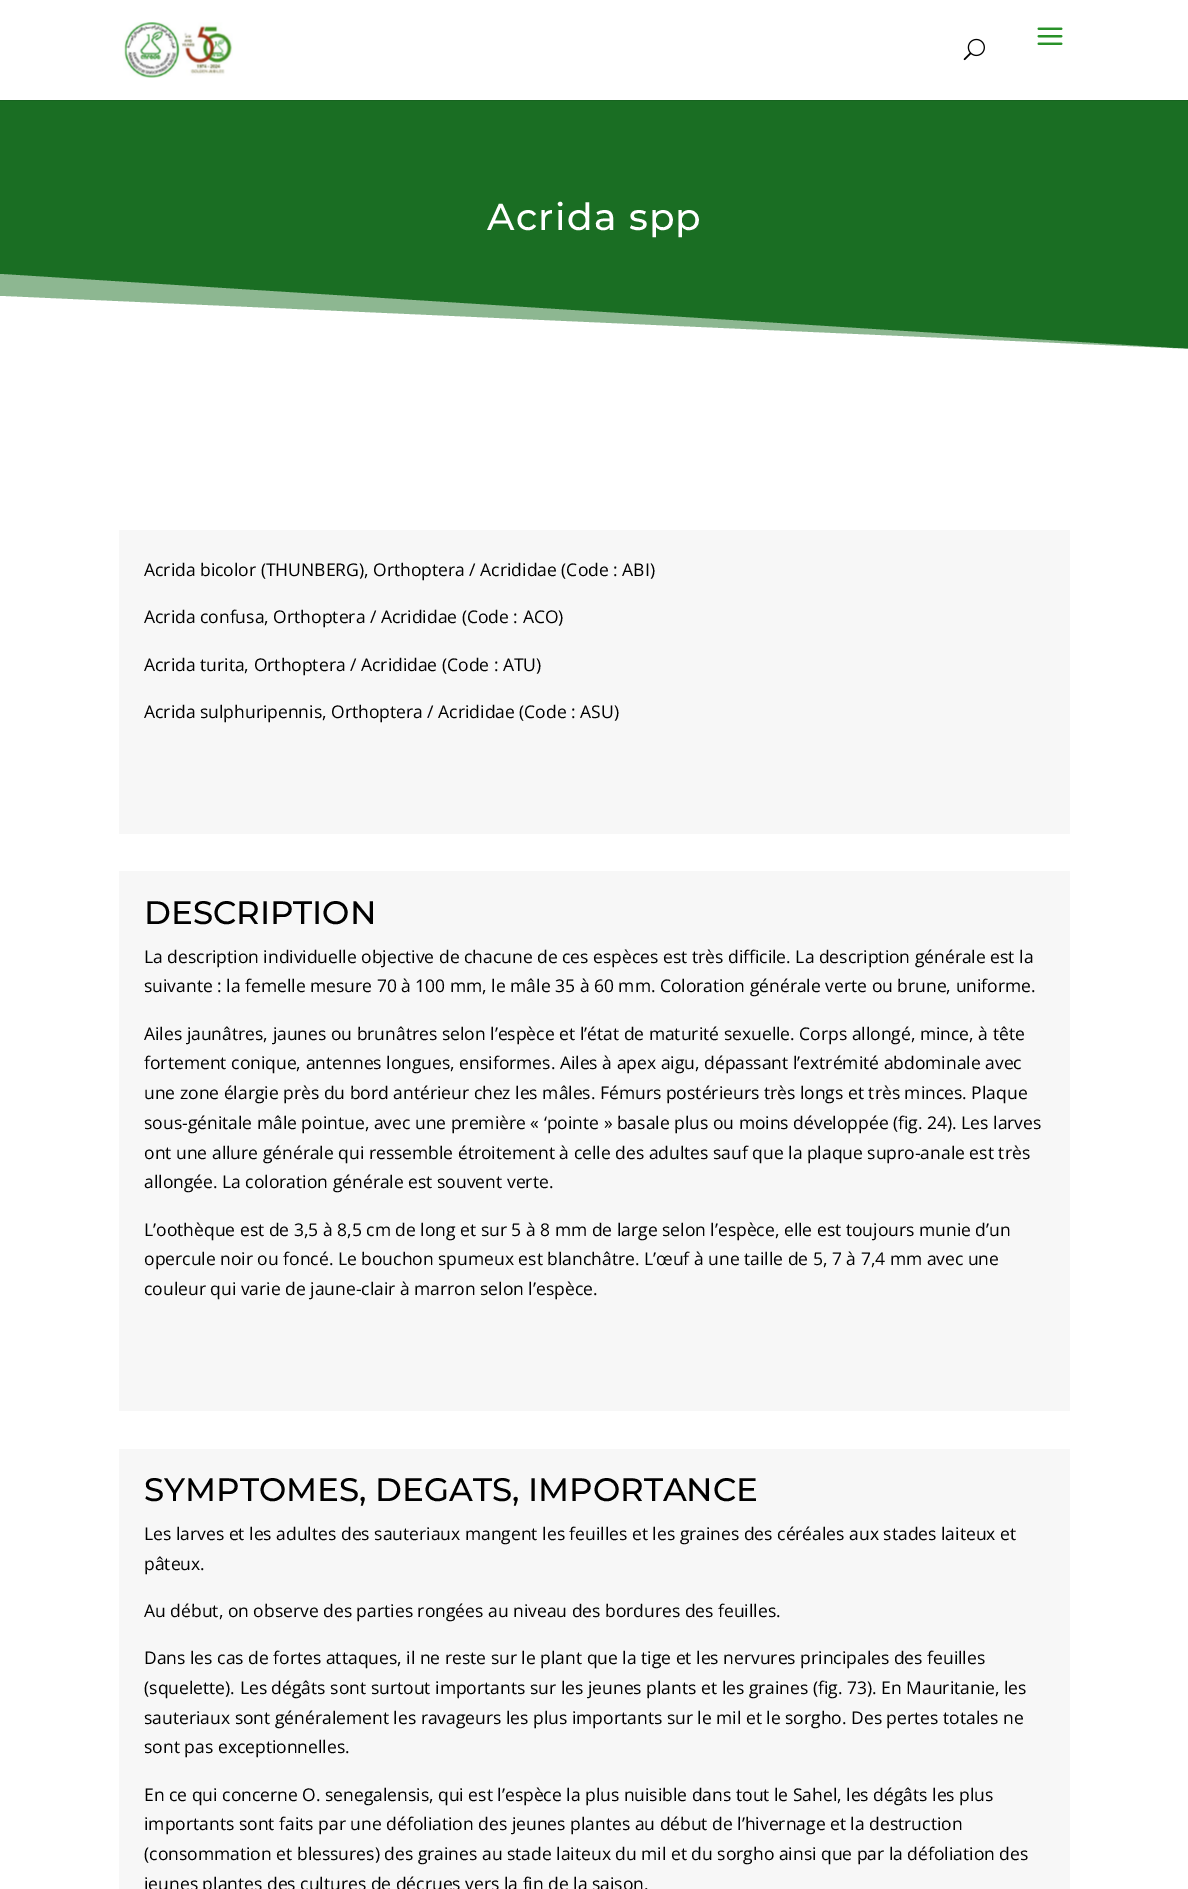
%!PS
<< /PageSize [1188 1889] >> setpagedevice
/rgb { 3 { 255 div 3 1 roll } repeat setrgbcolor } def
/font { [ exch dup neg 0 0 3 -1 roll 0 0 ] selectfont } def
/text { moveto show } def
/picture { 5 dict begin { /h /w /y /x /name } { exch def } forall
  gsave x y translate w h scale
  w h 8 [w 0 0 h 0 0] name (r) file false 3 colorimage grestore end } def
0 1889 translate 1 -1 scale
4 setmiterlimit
255 255 255 rgb
0 0 1188 1889 rectfill
23 99 32 rgb
0 100 moveto 0 1 rlineto 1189 0 rlineto 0 -100 rlineto 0 99 rlineto closepath fill
(img_01.rgb) 123 22 110 56 picture
(img_02.rgb) 1037 27 26 18 picture
(img_03.rgb) 963 38 22 23 picture
26 110 35 rgb
0 101 1188 248 rectfill
141 183 145 rgb
0 274 moveto 0 75 rlineto 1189 0 rlineto closepath fill
255 255 255 rgb
0 296 moveto 0 53 rlineto 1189 0 rlineto closepath fill
247 247 247 rgb
119 530 951 304 rectfill
119 871 951 540 rectfill
119 1449 951 440 rectfill
/Montserrat-Medium 37.5 font
255 255 255 rgb
487 230 moveto 1.25 0 (Acrida spp) ashow
/OpenSans-Regular 17.5 font
0 0 0 rgb
(Acrida bicolor \(THUNBERG\), Orthoptera / Acrididae \(Code : ABI\)) 144 576 text
(Acrida confusa, Orthoptera / Acrididae \(Code : ACO\)) 144 623 text
(Acrida turita, Orthoptera / Acrididae \(Code : ATU\)) 144 671 text
(Acrida sulphuripennis, Orthoptera / Acrididae \(Code : ASU\)) 144 718 text
/Montserrat-Medium 32.5 font
(DESCRIPTION) 144 924 text
/OpenSans-Regular 17.5 font
(La description individuelle objective de chacune de ces espèces est très difficile. La description générale est la) 144 963 text
(suivante : la femelle mesure 70 à 100 mm, le mâle 35 à 60 mm. Coloration générale verte ou brune, uniforme.) 144 992 text
(Ailes jaunâtres, jaunes ou brunâtres selon l’espèce et l’état de maturité sexuelle. Corps allongé, mince, à tête) 144 1040 text
(fortement conique, antennes longues, ensiformes. Ailes à apex aigu, dépassant l’extrémité abdominale avec) 144 1069 text
(une zone élargie près du bord antérieur chez les mâles. Fémurs postérieurs très longs et très minces. Plaque) 144 1099 text
(sous-génitale mâle pointue, avec une première « ‘pointe » basale plus ou moins développée \(fig. 24\). Les larves) 144 1129 text
(ont une allure générale qui ressemble étroitement à celle des adultes sauf que la plaque supro-anale est très) 144 1159 text
(allongée. La coloration générale est souvent verte.) 144 1188 text
(L’oothèque est de 3,5 à 8,5 cm de long et sur 5 à 8 mm de large selon l’espèce, elle est toujours munie d’un) 144 1236 text
(opercule noir ou foncé. Le bouchon spumeux est blanchâtre. L’œuf à une taille de 5, 7 à 7,4 mm avec une) 144 1265 text
(couleur qui varie de jaune-clair à marron selon l’espèce.) 144 1295 text
/Montserrat-Medium 32.5 font
(SYMPTOMES, DEGATS, IMPORTANCE) 144 1501 text
/OpenSans-Regular 17.5 font
(Les larves et les adultes des sauteriaux mangent les feuilles et les graines des céréales aux stades laiteux et) 144 1540 text
(pâteux.) 144 1570 text
(Au début, on observe des parties rongées au niveau des bordures des feuilles.) 144 1617 text
(Dans les cas de fortes attaques, il ne reste sur le plant que la tige et les nervures principales des feuilles) 144 1664 text
(\(squelette\). Les dégâts sont surtout importants sur les jeunes plants et les graines \(fig. 73\). En Mauritanie, les) 144 1694 text
(sauteriaux sont généralement les ravageurs les plus importants sur le mil et le sorgho. Des pertes totales ne) 144 1724 text
(sont pas exceptionnelles.) 144 1753 text
(En ce qui concerne O. senegalensis, qui est l’espèce la plus nuisible dans tout le Sahel, les dégâts les plus) 144 1801 text
(importants sont faits par une défoliation des jeunes plantes au début de l’hivernage et la destruction) 144 1830 text
(\(consommation et blessures\) des graines au stade laiteux du mil et du sorgho ainsi que par la défoliation des) 144 1860 text
(jeunes plantes des cultures de décrues vers la fin de la saison.) 144 1890 text
showpage
